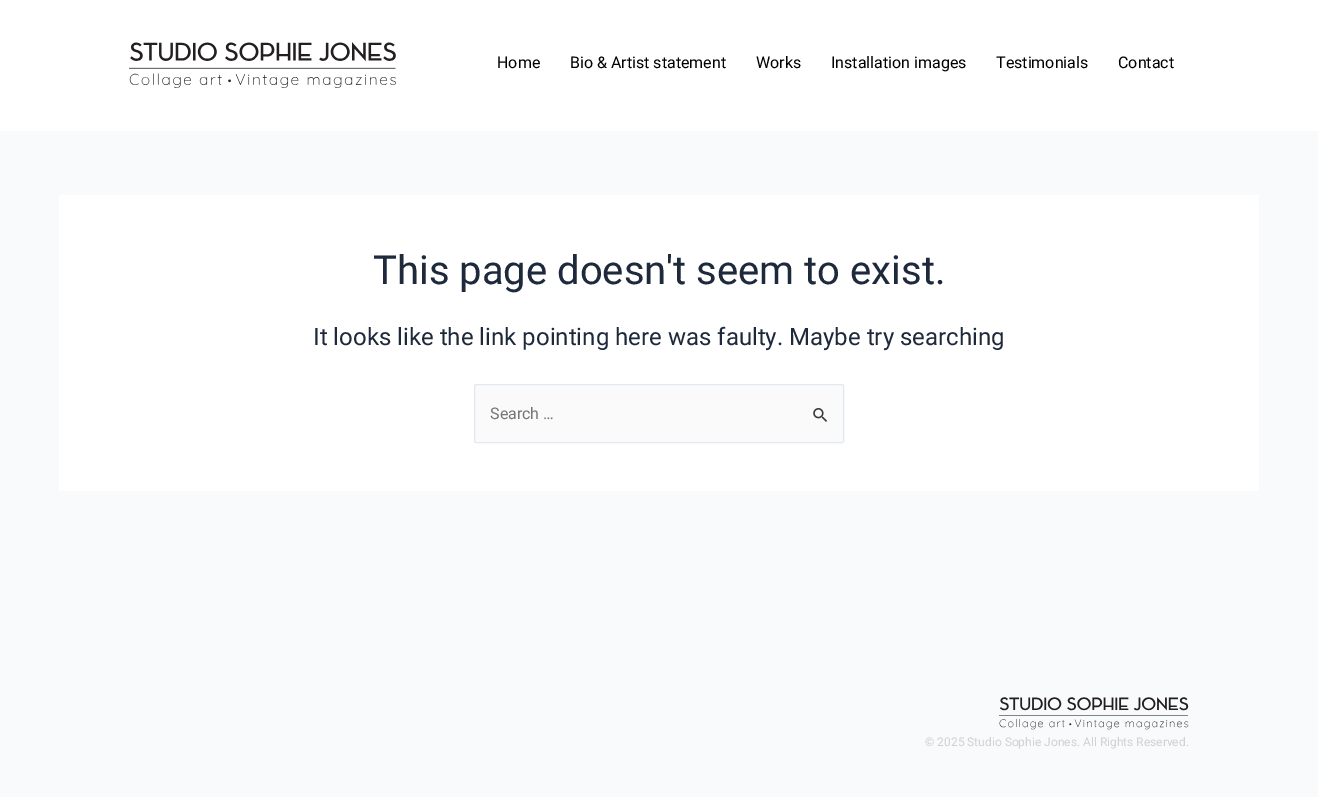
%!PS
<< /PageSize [1318 797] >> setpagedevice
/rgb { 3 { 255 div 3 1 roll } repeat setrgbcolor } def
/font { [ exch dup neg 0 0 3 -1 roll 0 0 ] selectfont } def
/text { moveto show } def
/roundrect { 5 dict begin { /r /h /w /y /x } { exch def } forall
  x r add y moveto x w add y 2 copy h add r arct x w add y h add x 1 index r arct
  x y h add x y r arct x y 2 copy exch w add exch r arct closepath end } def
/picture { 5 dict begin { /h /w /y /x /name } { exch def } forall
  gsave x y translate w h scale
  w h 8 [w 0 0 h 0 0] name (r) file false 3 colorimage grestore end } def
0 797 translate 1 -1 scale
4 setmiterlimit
249 250 251 rgb
0 0 1318 797 rectfill
255 255 255 rgb
0 0 1318 131 rectfill
(img_01.rgb) 129 42 267 46 picture
59 195 1200 296 rectfill
250 250 250 rgb
474.5 384.5 369 58 1.5 roundrect gsave fill grestore
226 232 240 rgb
stroke
(img_02.rgb) 813 408 14 14 picture
(img_03.rgb) 999 697 190 33 picture
/Roboto-Regular 16 font
0 0 0 rgb
(Home) 497 68 text
(Bio & Artist statement) 570 68 text
(Works) 756 68 text
(Installation images) 831 68 text
(Testimonials) 996 68 text
(Contact) 1118 68 text
/Roboto-Regular 40 font
30 41 59 rgb
(This page doesn't seem to exist.) 373 284 text
/Roboto-Regular 24 font
(It looks like the link pointing here was faulty. Maybe try searching) 313 345 text
/Roboto-Regular 16 font
117 117 117 rgb
(Search …) 490 419 text
/Roboto-Regular 12 font
209 209 209 rgb
(© 2025 Studio Sophie Jones. All Rights Reserved.) 925 746 text
showpage
